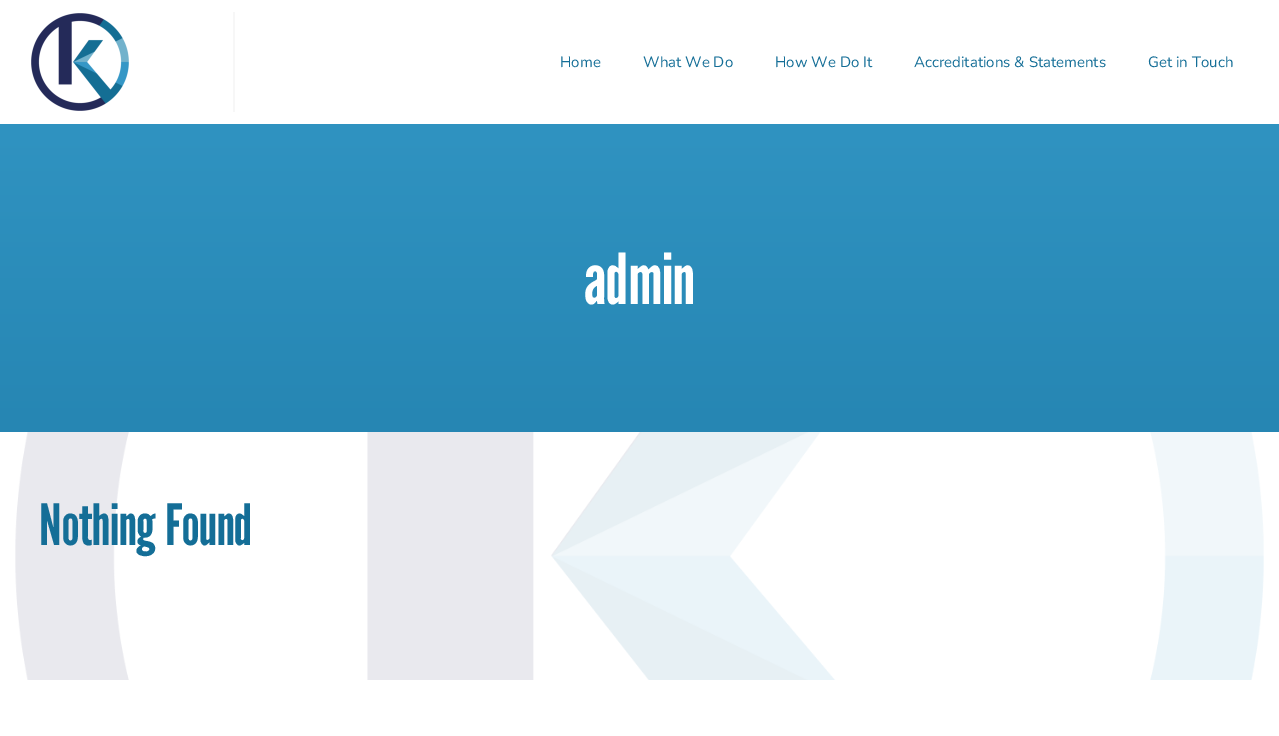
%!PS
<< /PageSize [1279 736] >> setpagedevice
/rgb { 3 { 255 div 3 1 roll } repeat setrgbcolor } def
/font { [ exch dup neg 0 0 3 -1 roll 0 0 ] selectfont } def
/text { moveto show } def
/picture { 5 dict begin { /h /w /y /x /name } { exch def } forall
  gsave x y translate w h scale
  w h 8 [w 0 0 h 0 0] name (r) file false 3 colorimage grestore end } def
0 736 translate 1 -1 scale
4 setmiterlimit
255 255 255 rgb
0 0 1279 736 rectfill
247 247 247 rgb
233 12 2 100 rectfill
(img_01.rgb) 31 13 98 98 picture
gsave 0 124 moveto 1279 0 rlineto 0 308 rlineto -1279 0 rlineto closepath clip newpath
<< /ShadingType 2 /ColorSpace /DeviceRGB /Coords [640 124 640 432] /Extend [true true] /Function << /FunctionType 2 /Domain [0 1] /C0 [0.188 0.576 0.757] /C1 [0.149 0.525 0.702] /N 1 >> >> shfill grestore
(img_02.rgb) 15 432 1249 248 picture
/Nunito-Regular 15 font
20 110 151 rgb
(Home) 560 67 text
(What We Do) 643 67 text
(How We Do It) 775 67 text
(Accreditations & Statements) 914 67 text
(Get in Touch) 1148 67 text
/LeagueGothic-Regular 70 font
255 255 255 rgb
(admin) 584 304 text
/LeagueGothic-Regular 57 font
20 110 151 rgb
(Nothing Found) 39 545 text
showpage
